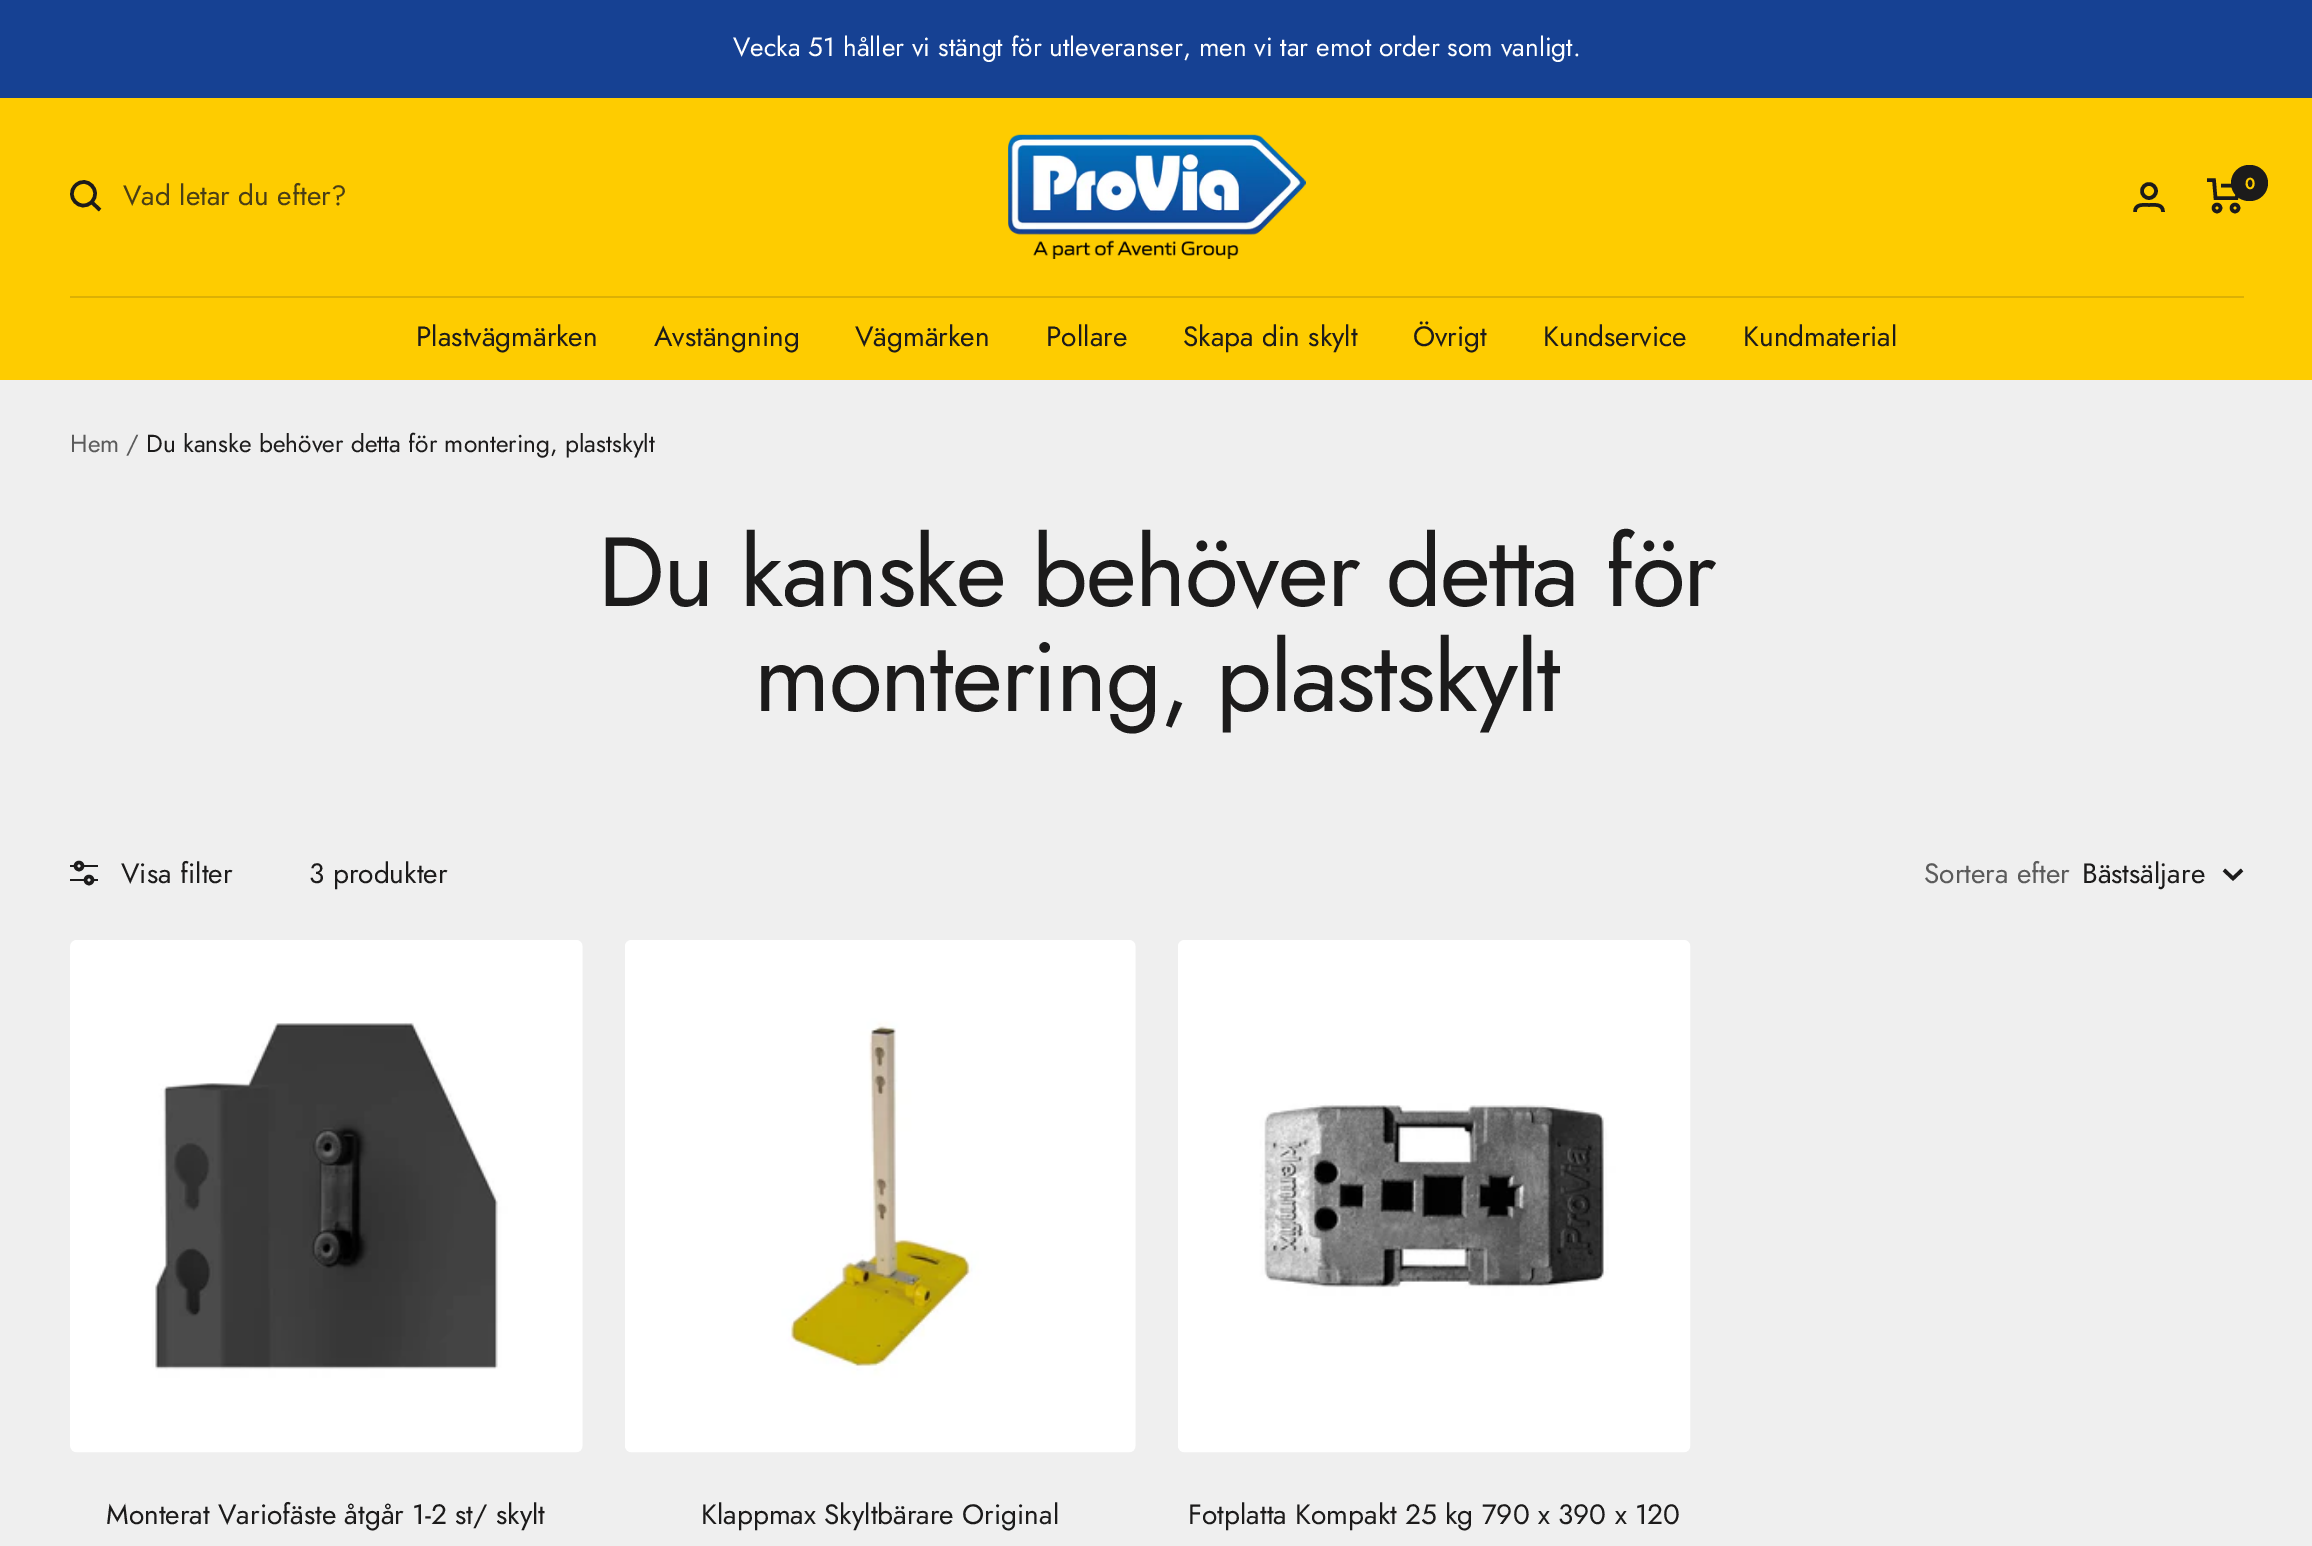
%!PS
<< /PageSize [2312 1546] >> setpagedevice
/rgb { 3 { 255 div 3 1 roll } repeat setrgbcolor } def
/font { [ exch dup neg 0 0 3 -1 roll 0 0 ] selectfont } def
/text { moveto show } def
/circle { newpath 0 360 arc closepath } def
/roundrect { 5 dict begin { /r /h /w /y /x } { exch def } forall
  x r add y moveto x w add y 2 copy h add r arct x w add y h add x 1 index r arct
  x y h add x y r arct x y 2 copy exch w add exch r arct closepath end } def
/picture { 5 dict begin { /h /w /y /x /name } { exch def } forall
  gsave x y translate w h scale
  w h 8 [w 0 0 h 0 0] name (r) file false 3 colorimage grestore end } def
0 1546 translate 1 -1 scale
4 setmiterlimit
239 239 239 rgb
0 0 2312 1546 rectfill
22 65 147 rgb
0 0 2312 98 rectfill
254 204 0 rgb
0 98 2312 282 rectfill
28 27 27 rgb
3.5 setlinewidth
91.5 202 moveto 11 -11 -5 -27.5 -16 -16.5 rcurveto -11 11 5 27.5 16 16.5 rcurveto closepath 91.5 202 moveto 8.5 8 rlineto stroke
(img_01.rgb) 1008 134 298 125 picture
2149 191 7 circle stroke
2135 212 moveto 0 -8.5 8.5 -7 14 -7 rcurveto 5.5 0 14 -1.5 14 7 rcurveto stroke
2207 180 moveto 7 0 rlineto 1.5 18 rlineto 21 0 rlineto 3.5 -12.5 rlineto -19 0 rlineto stroke
2217 208 3.5 circle stroke
2235 208 3.5 circle stroke
2231 165 37 36 18 roundrect fill
220 177 4 rgb
70 296 2174 2 rectfill
28 27 27 rgb
1.8 setlinewidth
70 866 moveto 28 0 rlineto 70 880 moveto 28 0 rlineto stroke
239 239 239 rgb
79 866 3.5 circle gsave fill grestore
28 27 27 rgb
3.5 setlinewidth
stroke
239 239 239 rgb
89 880 3.5 circle gsave fill grestore
28 27 27 rgb
stroke
2224 870 moveto 9 8.5 rlineto 9 -8.5 rlineto stroke
(img_02.rgb) 70 940 513 513 picture
(img_03.rgb) 625 940 511 513 picture
(img_04.rgb) 1178 940 513 513 picture
/Jost-Regular 26.25 font
255 255 255 rgb
(Vecka 51 håller vi stängt för utleveranser, men vi tar emot order som vanligt.) 733 56 text
/Jost-Regular 28 font
73 62 22 rgb
(Vad letar du efter?) 123 205 text
/Jost-SemiBold 16 font
254 204 0 rgb
(0) 2245 189 text
/Jost-Regular 28 font
28 27 27 rgb
(Plastvägmärken) 416 346 text
(Avstängning) 654 346 text
(Vägmärken) 855 346 text
(Pollare) 1046 346 text
(Skapa din skylt) 1183 346 text
(Övrigt) 1413 346 text
(Kundservice) 1543 346 text
(Kundmaterial) 1743 346 text
/Jost-Regular 24.5 font
91 91 91 rgb
(Hem) 70 452 text
(/) 126 452 text
28 27 27 rgb
(Du kanske behöver detta för montering, plastskylt) 146 452 text
/Jost-Regular 98 font
598 606 moveto -1.75 0 (Du kanske behöver detta för) ashow
754 711 moveto -1.75 0 (montering, plastskylt) ashow
/Jost-Regular 28 font
(Visa filter) 121 883 text
(3 produkter) 309 883 text
91 91 91 rgb
(Sortera efter) 1924 883 text
28 27 27 rgb
(Bästsäljare) 2082 883 text
(Monterat Variofäste åtgår 1-2 st/ skylt) 106 1524 text
(Klappmax Skyltbärare Original) 701 1524 text
(Fotplatta Kompakt 25 kg 790 x 390 x 120) 1188 1524 text
showpage
